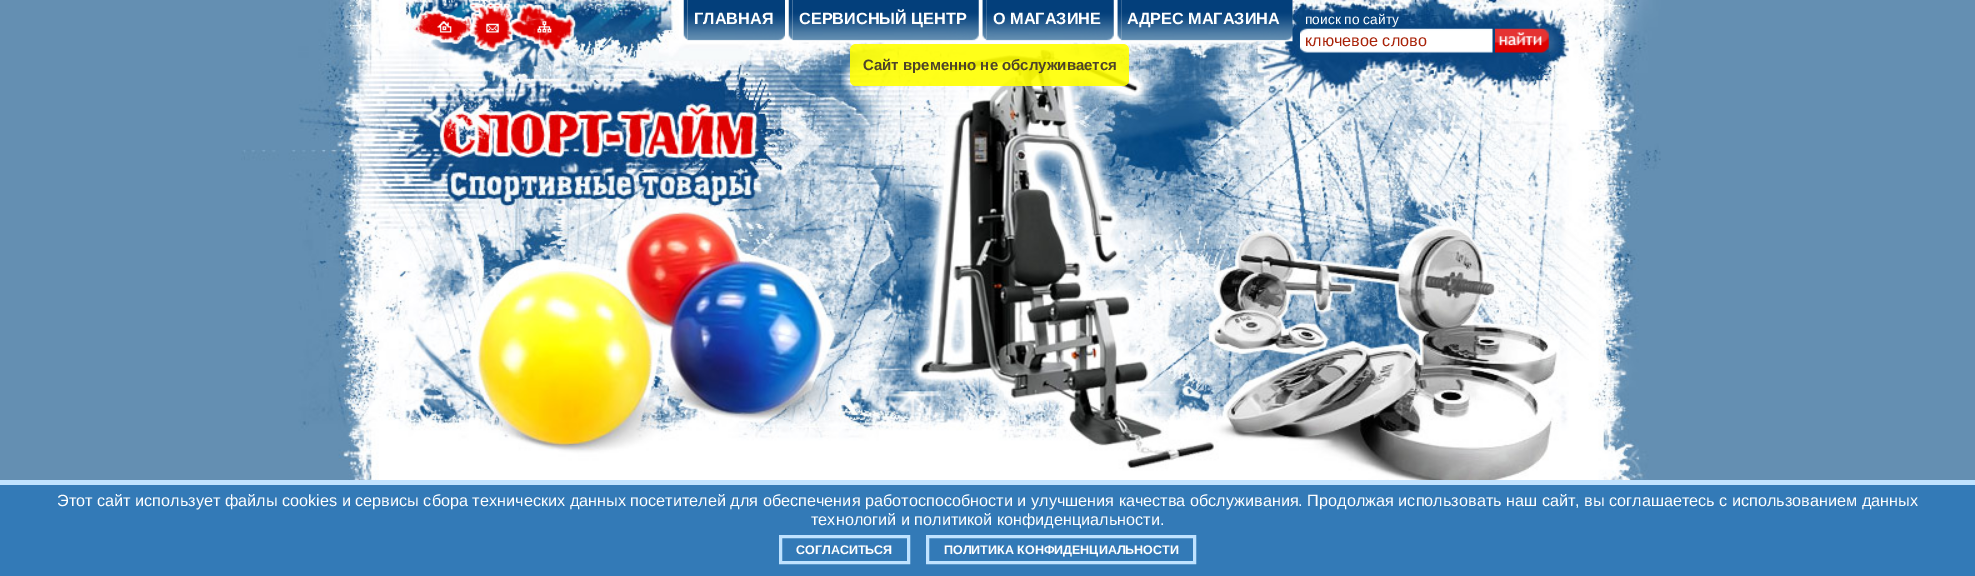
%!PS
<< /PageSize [1975 576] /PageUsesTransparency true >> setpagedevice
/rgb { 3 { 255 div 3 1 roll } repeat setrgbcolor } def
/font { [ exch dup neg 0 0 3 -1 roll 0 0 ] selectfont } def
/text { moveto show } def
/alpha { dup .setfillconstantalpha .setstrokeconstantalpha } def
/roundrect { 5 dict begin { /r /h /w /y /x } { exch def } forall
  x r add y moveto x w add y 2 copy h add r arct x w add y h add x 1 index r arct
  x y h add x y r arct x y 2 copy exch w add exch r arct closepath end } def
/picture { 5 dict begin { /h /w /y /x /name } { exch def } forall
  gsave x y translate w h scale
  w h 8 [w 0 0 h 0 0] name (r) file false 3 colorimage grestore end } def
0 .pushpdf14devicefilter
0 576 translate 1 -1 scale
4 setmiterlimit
100 143 178 rgb
0 0 1975 576 rectfill
(img_01.rgb) 241 0 1420 480 picture
(img_02.rgb) 683 0 5 40 picture
(img_03.rgb) 687 0 98 41 picture
(img_04.rgb) 788 0 5 40 picture
(img_05.rgb) 792 0 187 41 picture
(img_06.rgb) 982 0 5 41 picture
(img_07.rgb) 986 0 128 41 picture
(img_08.rgb) 1117 0 5 40 picture
(img_09.rgb) 1121 0 172 42 picture
(img_10.rgb) 433 0 132 47 picture
(img_11.rgb) 1300 28 193 25 picture
(img_12.rgb) 1495 28 54 25 picture
0.9 alpha
255 255 0 rgb
850 44 279 42 6 roundrect fill
1 alpha
51 122 183 rgb
0 485 1975 91 rectfill
191 226 255 rgb
0 480 1975 5 rectfill
3 setlinewidth
780.5 536.5 128 26 rectstroke
927.5 536.5 267 26 rectstroke
/LiberationSans-Bold 16.25 font
255 255 255 rgb
(ГЛАВНАЯ) 694 24 text
(СЕРВИСНЫЙ ЦЕНТР) 799 24 text
(О МАГАЗИНЕ) 993 24 text
(АДРЕС МАГАЗИНА) 1127 24 text
/LiberationSans-Regular 13.75 font
(поиск по сайту) 1305 24 text
/LiberationSans-Regular 16.25 font
168 33 7 rgb
(ключевое слово) 1305 46 text
/LiberationSans-Bold 15 font
78 68 40 rgb
(Сайт временно не обслуживается) 863 70 text
/LiberationSans-Regular 16.25 font
255 255 255 rgb
(Этот сайт использует файлы cookies и сервисы сбора технических данных посетителей для обеспечения работоспособности и улучшения качества обслуживания. Продолжая использовать наш сайт, вы соглашаетесь с использованием данных) 57 506 text
(технологий и политикой конфиденциальности.) 811 525 text
/LiberationSans-Bold 12.5 font
(СОГЛАСИТЬСЯ) 796 554 text
(ПОЛИТИКА КОНФИДЕНЦИАЛЬНОСТИ) 944 554 text
.poppdf14devicefilter showpage
